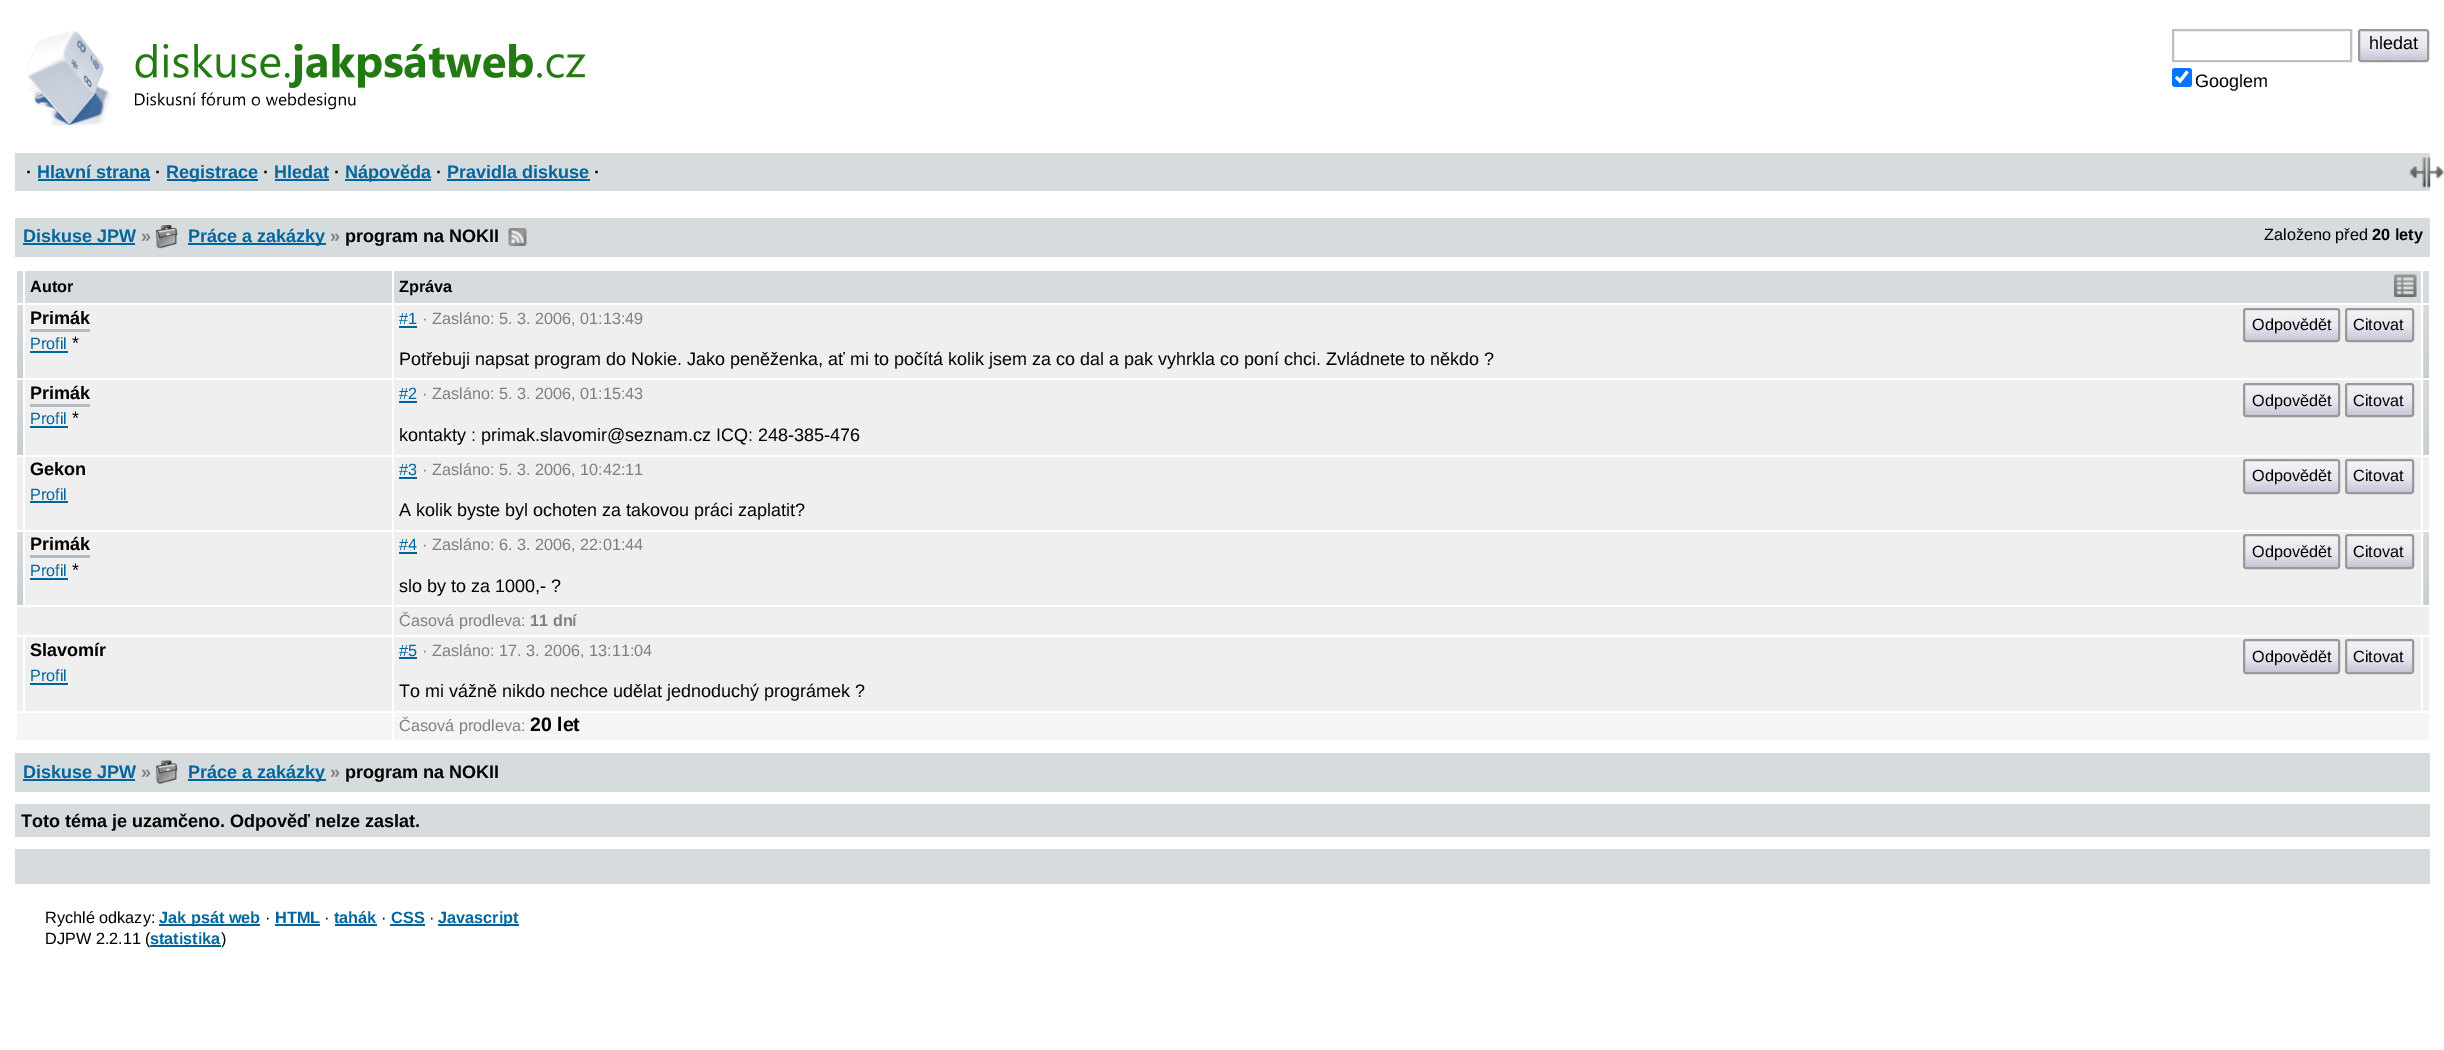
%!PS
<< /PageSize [2444 1050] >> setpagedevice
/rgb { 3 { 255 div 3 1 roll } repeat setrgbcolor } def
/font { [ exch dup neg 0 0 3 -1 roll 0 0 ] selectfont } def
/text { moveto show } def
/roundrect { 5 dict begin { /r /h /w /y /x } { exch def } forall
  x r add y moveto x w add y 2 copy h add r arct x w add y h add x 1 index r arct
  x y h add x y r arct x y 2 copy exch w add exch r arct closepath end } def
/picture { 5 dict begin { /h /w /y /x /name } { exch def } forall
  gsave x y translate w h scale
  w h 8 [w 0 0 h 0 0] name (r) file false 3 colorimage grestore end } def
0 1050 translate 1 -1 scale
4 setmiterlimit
255 255 255 rgb
0 0 2444 1050 rectfill
(img_01.rgb) 27 31 85 95 picture
(img_02.rgb) 135 44 450 66 picture
192 192 192 rgb
2 setlinewidth
2173 30 178 31 rectstroke
214 219 222 rgb
2360 30 67 30 1.5 roundrect fill
(img_03.rgb) 2360 31 67 29 picture
153 153 153 rgb
2359 30 69 31 2 roundrect stroke
0 117 255 rgb
2172 68 20 19 3 roundrect fill
255 255 255 rgb
3.1 setlinewidth
2176 77 moveto 4 4 rlineto 7.5 -9.5 rlineto stroke
214 219 222 rgb
15 153 2415 38 rectfill
0 101 156 rgb
38 179 112 2 rectfill
167 179 91 2 rectfill
275 179 54 2 rectfill
345 179 86 2 rectfill
447 179 143 2 rectfill
(img_04.rgb) 2409 157 35 31 picture
214 219 222 rgb
15 218 2415 39 rectfill
0 101 156 rgb
23 243 112 2 rectfill
(img_05.rgb) 156 225 22 24 picture
188 243 138 2 rectfill
(img_06.rgb) 508 228 19 18 picture
214 219 222 rgb
17 270 6 33 rectfill
2423 270 6 33 rectfill
255 255 255 rgb
15 270 2415 1 rectfill
214 219 222 rgb
25 271 367 32 rectfill
394 271 2027 32 rectfill
239 239 239 rgb
25 305 2396 73 rectfill
(img_07.rgb) 17 305 6 73 picture
177 187 193 rgb
30 329 60 3 rectfill
0 101 156 rgb
30 351 38 2 rectfill
399 326 18 2 rectfill
214 219 222 rgb
2245 310 93 30 rectfill
(img_08.rgb) 2245 310 93 30 picture
153 153 153 rgb
2 setlinewidth
2244 309 95 32 2 roundrect stroke
214 219 222 rgb
2347 310 65 30 rectfill
(img_09.rgb) 2347 310 65 30 picture
153 153 153 rgb
2346 309 67 32 2 roundrect stroke
(img_07.rgb) 2423 305 6 73 picture
239 239 239 rgb
25 380 2396 75 rectfill
177 187 193 rgb
17 454 6 1 rectfill
(img_10.rgb) 17 380 6 75 picture
30 404 60 3 rectfill
0 101 156 rgb
30 426 38 2 rectfill
399 401 18 2 rectfill
214 219 222 rgb
2245 385 93 30 rectfill
(img_08.rgb) 2245 385 93 30 picture
153 153 153 rgb
2244 384 95 32 2 roundrect stroke
214 219 222 rgb
2347 385 65 30 rectfill
(img_09.rgb) 2347 385 65 30 picture
153 153 153 rgb
2346 384 67 32 2 roundrect stroke
177 187 193 rgb
2423 454 6 1 rectfill
(img_10.rgb) 2423 380 6 75 picture
239 239 239 rgb
17 457 2412 73 rectfill
(img_13.rgb) 17 529 6 76 picture
255 255 255 rgb
15 530 9 2 rectfill
23 455 2 76 rectfill
0 101 156 rgb
30 501 38 2 rectfill
399 477 18 2 rectfill
214 219 222 rgb
2245 461 93 31 rectfill
(img_11.rgb) 2245 461 93 31 picture
153 153 153 rgb
2244 460 95 33 2 roundrect stroke
214 219 222 rgb
2346 461 66 31 1.5 roundrect fill
(img_12.rgb) 2347 461 65 31 picture
153 153 153 rgb
2346 460 67 33 2 roundrect stroke
255 255 255 rgb
2421 455 2 76 rectfill
239 239 239 rgb
25 532 2396 73 rectfill
177 187 193 rgb
30 555 60 3 rectfill
0 101 156 rgb
30 578 38 2 rectfill
399 552 18 2 rectfill
214 219 222 rgb
2245 536 93 31 rectfill
(img_11.rgb) 2245 536 93 31 picture
153 153 153 rgb
2244 535 95 33 2 roundrect stroke
214 219 222 rgb
2346 536 66 31 1.5 roundrect fill
(img_12.rgb) 2347 536 65 31 picture
153 153 153 rgb
2346 535 67 33 2 roundrect stroke
(img_14.rgb) 2423 532 6 73 picture
239 239 239 rgb
17 607 2412 28 rectfill
17 637 2412 74 rectfill
255 255 255 rgb
23 635 2 78 rectfill
0 101 156 rgb
30 683 38 2 rectfill
255 255 255 rgb
392 303 2 410 rectfill
0 101 156 rgb
399 657 18 2 rectfill
214 219 222 rgb
2245 641 93 31 rectfill
(img_11.rgb) 2245 641 93 31 picture
153 153 153 rgb
2244 640 95 33 2 roundrect stroke
214 219 222 rgb
2346 641 66 31 1.5 roundrect fill
(img_12.rgb) 2347 641 65 31 picture
153 153 153 rgb
2346 640 67 33 2 roundrect stroke
255 255 255 rgb
2421 635 2 78 rectfill
245 245 245 rgb
17 713 375 27 rectfill
394 713 2035 27 rectfill
(img_15.rgb) 2394 274 23 23 picture
214 219 222 rgb
15 753 2415 39 rectfill
0 101 156 rgb
23 779 112 2 rectfill
(img_16.rgb) 156 760 22 24 picture
188 779 138 2 rectfill
214 219 222 rgb
15 804 2415 33 rectfill
15 849 2415 35 rectfill
0 101 156 rgb
159 924 101 2 rectfill
275 924 45 2 rectfill
335 924 42 2 rectfill
390 924 35 2 rectfill
438 924 81 2 rectfill
/LiberationSans-Regular 18 font
0 0 0 rgb
(hledat) 2369 49 text
(Googlem) 2195 87 text
/LiberationSans-Bold 18 font
(·) 26 178 text
0 101 156 rgb
(Hlavní strana) 37 178 text
0 0 0 rgb
(·) 155 178 text
0 101 156 rgb
(Registrace) 166 178 text
0 0 0 rgb
(·) 263 178 text
0 101 156 rgb
(Hledat) 274 178 text
0 0 0 rgb
(·) 334 178 text
0 101 156 rgb
(Nápověda) 345 178 text
0 0 0 rgb
(·) 436 178 text
0 101 156 rgb
(Pravidla diskuse) 447 178 text
0 0 0 rgb
(·) 594 178 text
0 101 156 rgb
(Diskuse JPW) 23 242 text
128 128 128 rgb
(») 141 242 text
0 101 156 rgb
(Práce a zakázky) 188 242 text
128 128 128 rgb
(») 330 242 text
0 0 0 rgb
(program na NOKII) 345 242 text
/LiberationSans-Regular 16.25 font
(Založeno před) 2264 240 text
/LiberationSans-Bold 16.25 font
(20 lety) 2372 240 text
(Autor) 30 292 text
(Zpráva) 399 292 text
/LiberationSans-Bold 18 font
(Primák) 30 324 text
/LiberationSans-Regular 16.25 font
0 101 156 rgb
(Profil) 30 349 text
/LiberationSans-Regular 18 font
0 0 0 rgb
(*) 72 349 text
/LiberationSans-Regular 16.25 font
0 101 156 rgb
(#1) 399 324 text
128 128 128 rgb
(· Zasláno: 5. 3. 2006, 01:13:49) 422 324 text
0 0 0 rgb
(Odpovědět) 2252 330 text
(Citovat) 2353 330 text
/LiberationSans-Regular 18 font
(Potřebuji napsat program do Nokie. Jako peněženka, ať mi to počítá kolik jsem za co dal a pak vyhrkla co poní chci. Zvládnete to někdo ?) 399 365 text
/LiberationSans-Bold 18 font
(Primák) 30 399 text
/LiberationSans-Regular 16.25 font
0 101 156 rgb
(Profil) 30 424 text
/LiberationSans-Regular 18 font
0 0 0 rgb
(*) 72 424 text
/LiberationSans-Regular 16.25 font
0 101 156 rgb
(#2) 399 399 text
128 128 128 rgb
(· Zasláno: 5. 3. 2006, 01:15:43) 422 399 text
0 0 0 rgb
(Odpovědět) 2252 406 text
(Citovat) 2353 406 text
/LiberationSans-Regular 18 font
(kontakty : primak.slavomir@seznam.cz ICQ: 248-385-476) 399 441 text
/LiberationSans-Bold 18 font
(Gekon) 30 475 text
/LiberationSans-Regular 16.25 font
0 101 156 rgb
(Profil) 30 500 text
(#3) 399 475 text
128 128 128 rgb
(· Zasláno: 5. 3. 2006, 10:42:11) 422 475 text
0 0 0 rgb
(Odpovědět) 2252 481 text
(Citovat) 2353 481 text
/LiberationSans-Regular 18 font
(A kolik byste byl ochoten za takovou práci zaplatit?) 399 516 text
/LiberationSans-Bold 18 font
(Primák) 30 550 text
/LiberationSans-Regular 16.25 font
0 101 156 rgb
(Profil) 30 576 text
/LiberationSans-Regular 18 font
0 0 0 rgb
(*) 72 576 text
/LiberationSans-Regular 16.25 font
0 101 156 rgb
(#4) 399 550 text
128 128 128 rgb
(· Zasláno: 6. 3. 2006, 22:01:44) 422 550 text
0 0 0 rgb
(Odpovědět) 2252 557 text
(Citovat) 2353 557 text
/LiberationSans-Regular 18 font
(slo by to za 1000,- ?) 399 592 text
/LiberationSans-Regular 16.25 font
128 128 128 rgb
(Časová prodleva:) 399 626 text
/LiberationSans-Bold 16.25 font
(11 dní) 530 626 text
/LiberationSans-Bold 18 font
0 0 0 rgb
(Slavomír) 30 656 text
/LiberationSans-Regular 16.25 font
0 101 156 rgb
(Profil) 30 681 text
(#5) 399 656 text
128 128 128 rgb
(· Zasláno: 17. 3. 2006, 13:11:04) 422 656 text
0 0 0 rgb
(Odpovědět) 2252 662 text
(Citovat) 2353 662 text
/LiberationSans-Regular 18 font
(To mi vážně nikdo nechce udělat jednoduchý prográmek ?) 399 697 text
/LiberationSans-Regular 16.25 font
128 128 128 rgb
(Časová prodleva:) 399 731 text
/LiberationSans-Bold 19.5 font
0 0 0 rgb
(20 let) 530 731 text
/LiberationSans-Bold 18 font
0 101 156 rgb
(Diskuse JPW) 23 778 text
128 128 128 rgb
(») 141 778 text
0 101 156 rgb
(Práce a zakázky) 188 778 text
128 128 128 rgb
(») 330 778 text
0 0 0 rgb
(program na NOKII) 345 778 text
(Toto téma je uzamčeno. Odpověď nelze zaslat.) 21 827 text
/LiberationSans-Regular 16.25 font
(Rychlé odkazy:) 45 923 text
/LiberationSans-Bold 16.25 font
0 101 156 rgb
(Jak psát web) 159 923 text
/LiberationSans-Regular 16.25 font
0 0 0 rgb
(·) 265 923 text
/LiberationSans-Bold 16.25 font
0 101 156 rgb
(HTML) 275 923 text
/LiberationSans-Regular 16.25 font
0 0 0 rgb
(·) 324 923 text
/LiberationSans-Bold 16.25 font
0 101 156 rgb
(tahák) 334 923 text
/LiberationSans-Regular 16.25 font
0 0 0 rgb
(·) 381 923 text
/LiberationSans-Bold 16.25 font
0 101 156 rgb
(CSS) 391 923 text
/LiberationSans-Regular 16.25 font
0 0 0 rgb
(·) 429 923 text
/LiberationSans-Bold 16.25 font
0 101 156 rgb
(Javascript) 438 923 text
/LiberationSans-Regular 16.25 font
0 0 0 rgb
(DJPW 2.2.11 \() 45 944 text
0 101 156 rgb
150 945 71 2 rectfill
/LiberationSans-Bold 16.25 font
(statistika) 150 944 text
/LiberationSans-Regular 16.25 font
0 0 0 rgb
(\)) 221 944 text
showpage
